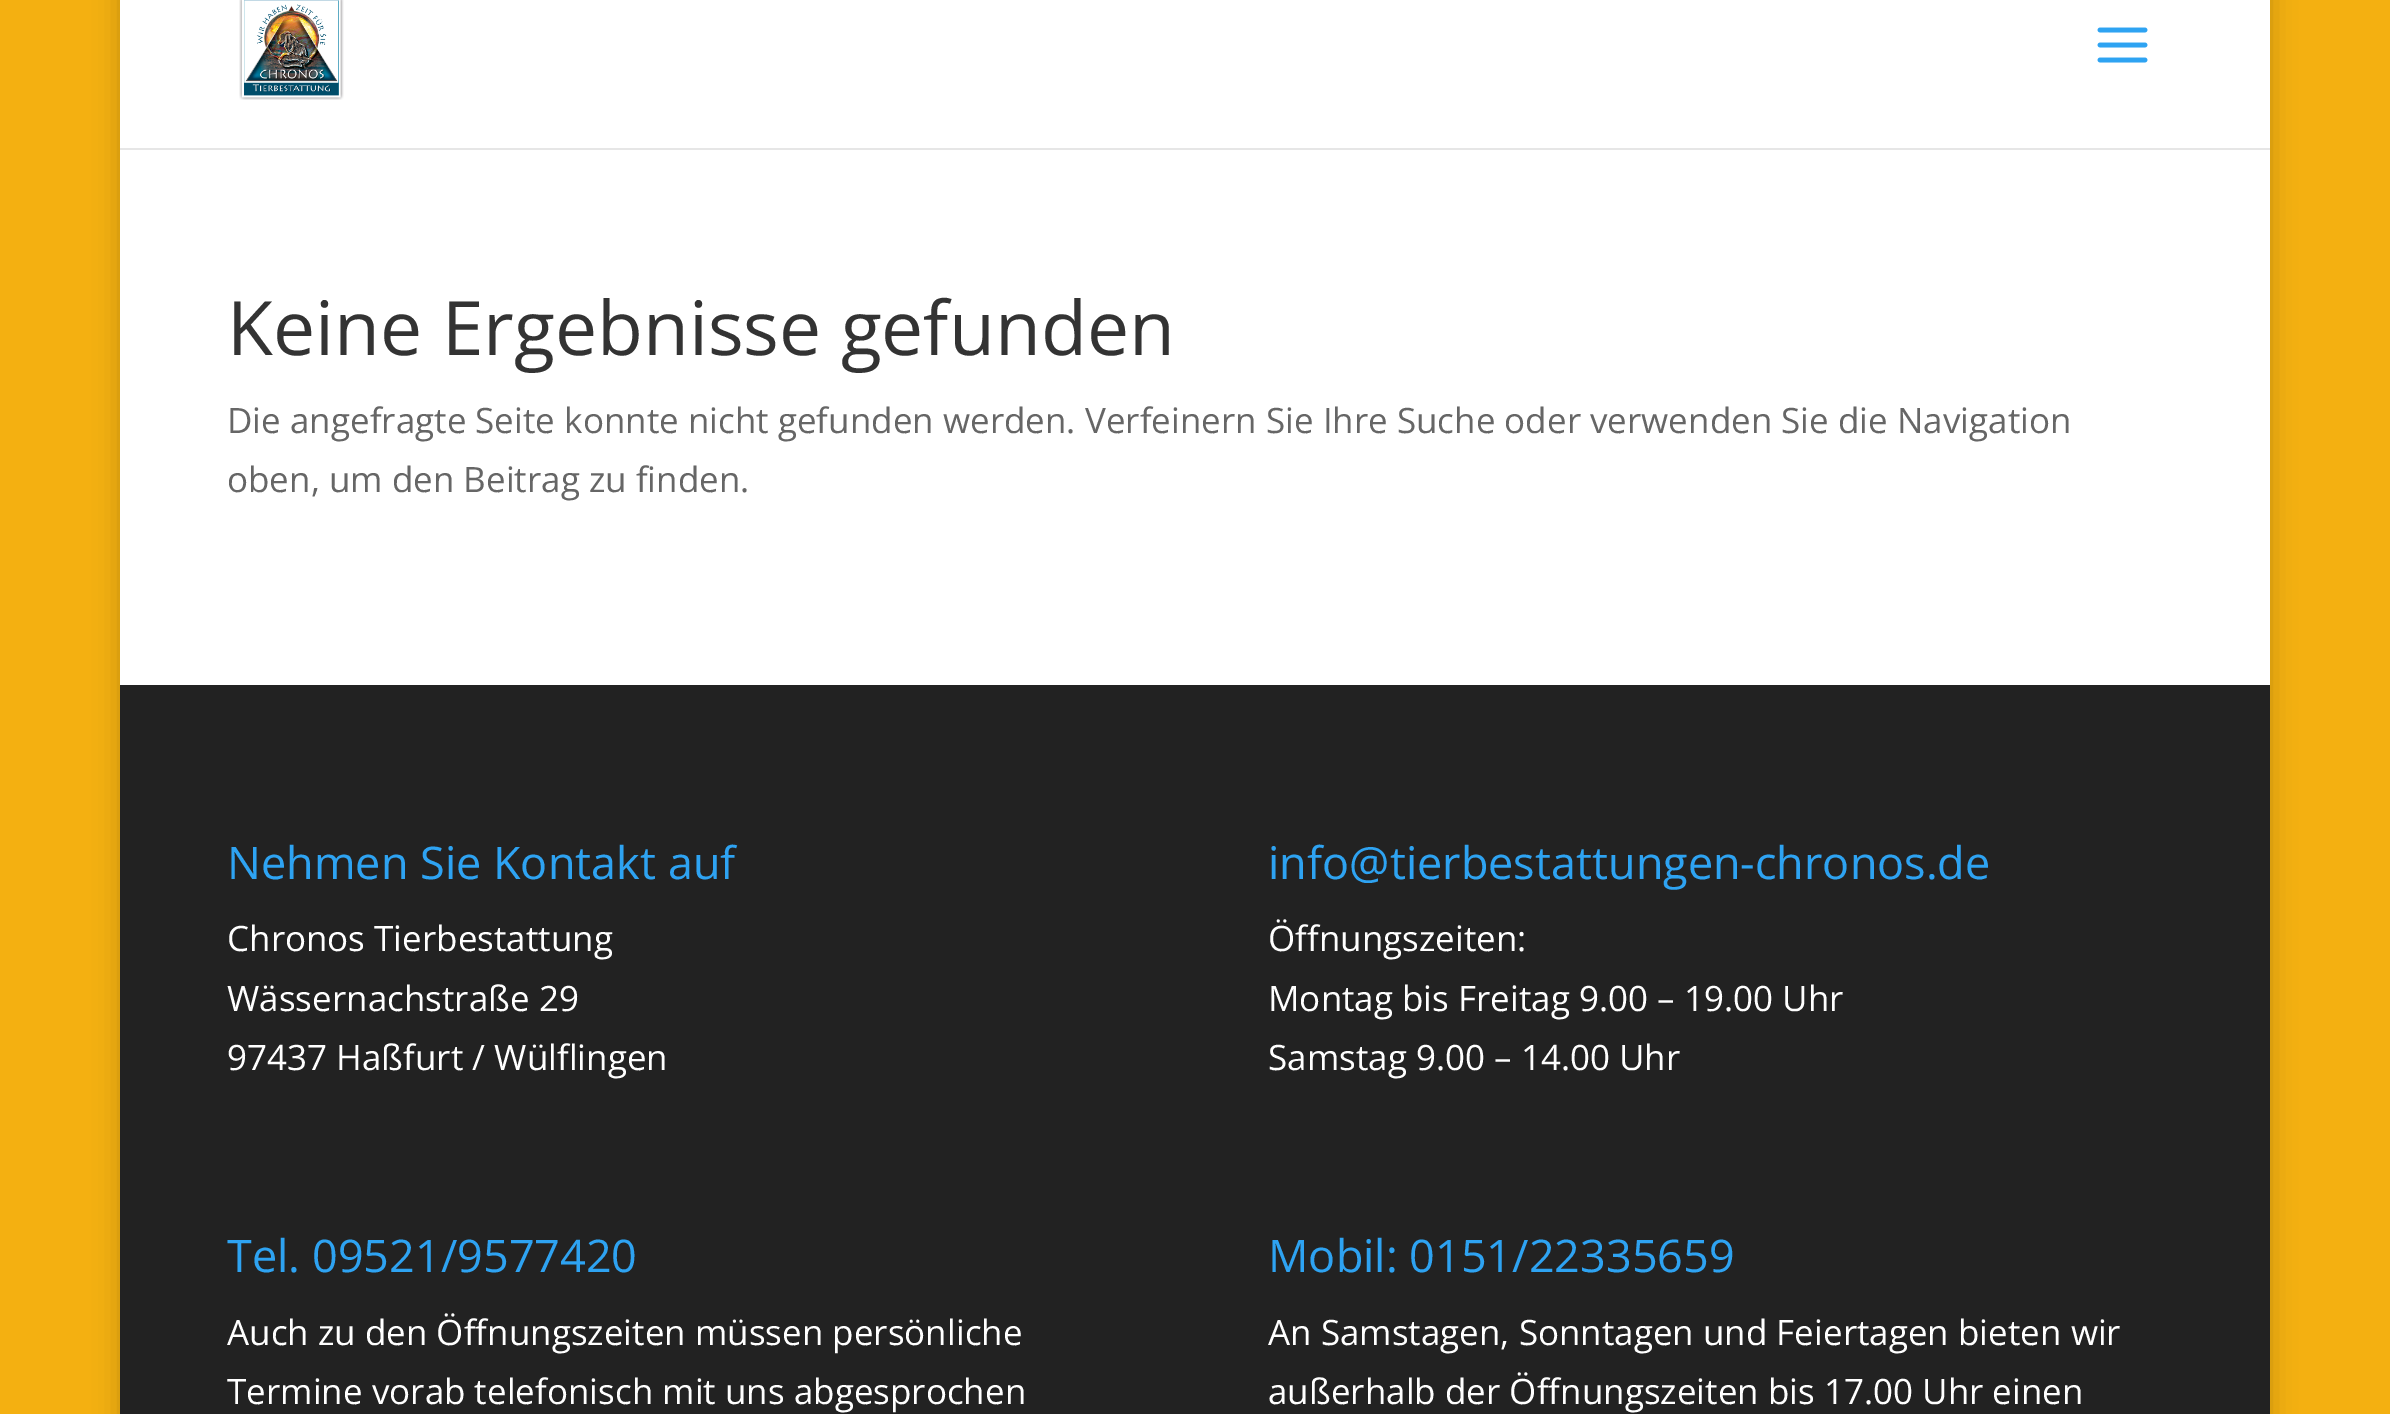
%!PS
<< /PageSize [2390 1414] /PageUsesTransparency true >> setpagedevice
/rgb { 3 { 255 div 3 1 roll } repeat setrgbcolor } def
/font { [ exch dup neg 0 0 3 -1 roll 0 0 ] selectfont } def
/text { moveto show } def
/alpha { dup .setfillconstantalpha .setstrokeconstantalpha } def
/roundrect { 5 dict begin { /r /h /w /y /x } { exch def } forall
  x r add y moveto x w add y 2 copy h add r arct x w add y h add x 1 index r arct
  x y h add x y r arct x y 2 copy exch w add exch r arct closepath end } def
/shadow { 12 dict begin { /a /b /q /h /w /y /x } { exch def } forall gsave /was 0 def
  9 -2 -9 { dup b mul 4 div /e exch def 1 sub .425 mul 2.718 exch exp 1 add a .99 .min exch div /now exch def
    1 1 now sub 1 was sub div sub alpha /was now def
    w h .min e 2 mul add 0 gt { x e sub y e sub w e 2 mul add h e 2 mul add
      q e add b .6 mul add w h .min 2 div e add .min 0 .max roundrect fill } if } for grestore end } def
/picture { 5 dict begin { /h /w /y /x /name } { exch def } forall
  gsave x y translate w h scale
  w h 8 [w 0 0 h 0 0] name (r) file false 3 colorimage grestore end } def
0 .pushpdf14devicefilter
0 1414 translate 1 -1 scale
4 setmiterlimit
244 176 17 rgb
0 0 2390 1414 rectfill
0 0 0 rgb
120 -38 2150 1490 0 12.5 0.2 shadow
230 230 230 rgb
120 148 2150 2 rectfill
255 255 255 rgb
120 0 2150 148 rectfill
(img_01.rgb) 239 0 105 100 picture
(img_02.rgb) 2097 27 51 36 picture
120 150 2150 535 rectfill
34 34 34 rgb
120 685 2150 729 rectfill
/OpenSans-Regular 75 font
51 51 51 rgb
(Keine Ergebnisse gefunden) 227 355 text
/OpenSans-Regular 35 font
102 102 102 rgb
(Die angefragte Seite konnte nicht gefunden werden. Verfeinern Sie Ihre Suche oder verwenden Sie die Navigation) 227 433 text
(oben, um den Beitrag zu finden.) 227 492 text
/OpenSans-Regular 45 font
46 163 242 rgb
(Nehmen Sie Kontakt auf) 227 879 text
/OpenSans-Regular 35 font
255 255 255 rgb
(Chronos Tierbestattung) 227 951 text
(Wässernachstraße 29) 227 1011 text
(97437 Haßfurt / Wülflingen) 227 1070 text
/OpenSans-Regular 45 font
46 163 242 rgb
(info@tierbestattungen-chronos.de) 1268 879 text
/OpenSans-Regular 35 font
255 255 255 rgb
(Öffnungszeiten:) 1268 951 text
(Montag bis Freitag 9.00 – 19.00 Uhr) 1268 1011 text
(Samstag 9.00 – 14.00 Uhr) 1268 1070 text
/OpenSans-Regular 45 font
46 163 242 rgb
(Tel. 09521/9577420) 227 1272 text
/OpenSans-Regular 35 font
255 255 255 rgb
(Auch zu den Öffnungszeiten müssen persönliche) 227 1345 text
(Termine vorab telefonisch mit uns abgesprochen) 227 1404 text
/OpenSans-Regular 45 font
46 163 242 rgb
(Mobil: 0151/22335659) 1268 1272 text
/OpenSans-Regular 35 font
255 255 255 rgb
(An Samstagen, Sonntagen und Feiertagen bieten wir) 1268 1345 text
(außerhalb der Öffnungszeiten bis 17.00 Uhr einen) 1268 1404 text
.poppdf14devicefilter showpage
